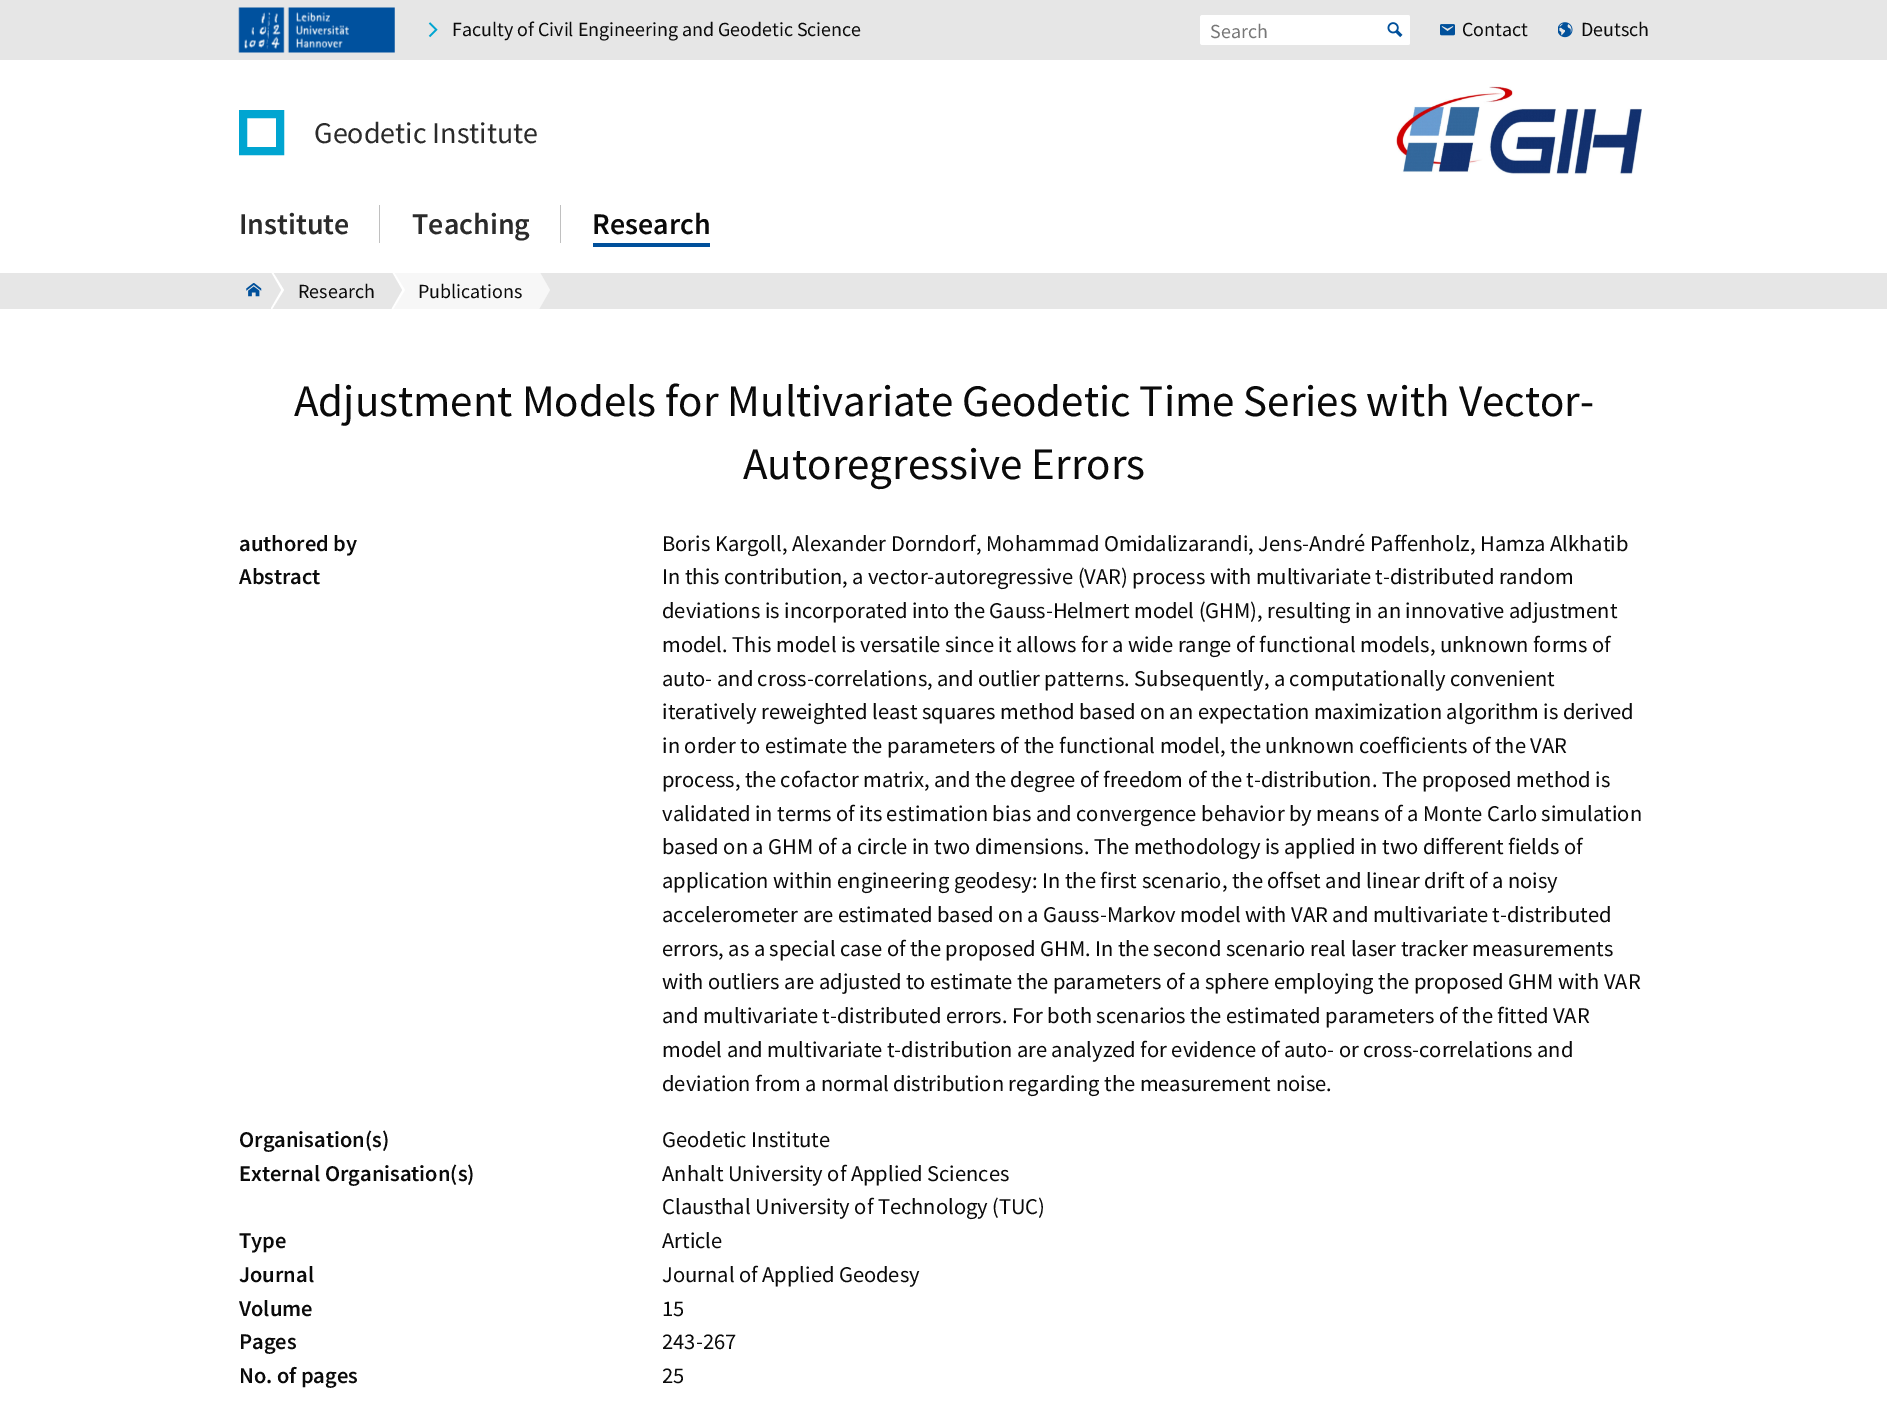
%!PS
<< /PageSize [1887 1402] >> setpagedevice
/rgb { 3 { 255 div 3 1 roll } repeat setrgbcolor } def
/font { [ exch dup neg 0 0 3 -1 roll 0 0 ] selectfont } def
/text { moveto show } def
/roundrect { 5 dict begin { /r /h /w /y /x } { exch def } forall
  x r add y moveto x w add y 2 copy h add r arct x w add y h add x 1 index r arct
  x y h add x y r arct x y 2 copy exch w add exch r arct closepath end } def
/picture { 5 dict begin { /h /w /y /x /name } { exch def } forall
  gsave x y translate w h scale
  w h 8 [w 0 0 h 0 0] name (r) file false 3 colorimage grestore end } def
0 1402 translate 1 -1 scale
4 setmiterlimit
255 255 255 rgb
0 0 1887 1402 rectfill
230 230 230 rgb
0 0 1887 60 rectfill
(img_01.rgb) 238 7 157 46 picture
(img_02.rgb) 428 22 10 16 picture
255 255 255 rgb
1200 15 210 30 2.5 roundrect fill
1380 15 moveto 27.5 0 rlineto 1.5 0 2.5 1 2.5 2.5 rcurveto 0 25 rlineto 0 1.5 -1 2.5 -2.5 2.5 rcurveto -27.5 0 rlineto closepath fill
(img_03.rgb) 1387 22 16 16 picture
(img_04.rgb) 1440 24 15 12 picture
(img_05.rgb) 1558 22 15 16 picture
0 165 209 rgb
8 setlinewidth
243 114 37 37 rectstroke
(img_06.rgb) 1396 86 246 89 picture
192 192 192 rgb
379 205 1 38 rectfill
560 205 1 38 rectfill
0 80 155 rgb
593 243 117 4 rectfill
230 230 230 rgb
0 273 1887 36 rectfill
gsave
220 273 1429 36 rectclip
255 255 255 rgb
271 311 moveto 0 -42 rlineto 13 21 rlineto closepath fill
230 230 230 rgb
269 311 moveto 0 -42 rlineto 12 21 rlineto closepath fill
grestore
(img_07.rgb) 246 283 16 14 picture
247 247 247 rgb
391 273 147 36 rectfill
gsave
220 273 1429 36 rectclip
255 255 255 rgb
392 311 moveto 0 -42 rlineto 13 21 rlineto closepath fill
230 230 230 rgb
390 311 moveto 0 -42 rlineto 12 21 rlineto closepath fill
247 247 247 rgb
538 311 moveto 0 -42 rlineto 12 21 rlineto closepath fill
grestore
/SourceSansPro-Regular 20 font
10 10 10 rgb
(Faculty of Civil Engineering and Geodetic Science) 452 36 text
119 119 119 rgb
(Search) 1210 38 text
10 10 10 rgb
(Contact) 1462 36 text
(Deutsch) 1581 36 text
/SourceSansPro-Regular 30 font
43 43 43 rgb
(Geodetic Institute) 314 143 text
/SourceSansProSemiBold-SemiBold 30 font
(Institute) 239 234 text
(Teaching) 412 234 text
10 10 10 rgb
(Research) 592 234 text
/SourceSansPro-Regular 20 font
(Research) 298 298 text
(Publications) 418 298 text
/SourceSansPro-Regular 45 font
(Adjustment Models for Multivariate Geodetic Time Series with Vector-) 294 416 text
(Autoregressive Errors) 743 479 text
/SourceSansProSemiBold-SemiBold 22.5 font
(authored by) 239 551 text
/SourceSansPro-Regular 22.5 font
(Boris Kargoll, Alexander Dorndorf, Mohammad Omidalizarandi, Jens-André Paffenholz, Hamza Alkhatib) 662 551 text
/SourceSansProSemiBold-SemiBold 22.5 font
(Abstract) 239 584 text
/SourceSansPro-Regular 22.5 font
(In this contribution, a vector-autoregressive \(VAR\) process with multivariate t-distributed random) 662 584 text
(deviations is incorporated into the Gauss-Helmert model \(GHM\), resulting in an innovative adjustment) 662 618 text
(model. This model is versatile since it allows for a wide range of functional models, unknown forms of) 662 652 text
(auto- and cross-correlations, and outlier patterns. Subsequently, a computationally convenient) 662 686 text
(iteratively reweighted least squares method based on an expectation maximization algorithm is derived) 662 719 text
(in order to estimate the parameters of the functional model, the unknown coefficients of the VAR) 662 753 text
(process, the cofactor matrix, and the degree of freedom of the t-distribution. The proposed method is) 662 787 text
(validated in terms of its estimation bias and convergence behavior by means of a Monte Carlo simulation) 662 821 text
(based on a GHM of a circle in two dimensions. The methodology is applied in two different fields of) 662 854 text
(application within engineering geodesy: In the first scenario, the offset and linear drift of a noisy) 662 888 text
(accelerometer are estimated based on a Gauss-Markov model with VAR and multivariate t-distributed) 662 922 text
(errors, as a special case of the proposed GHM. In the second scenario real laser tracker measurements) 662 956 text
(with outliers are adjusted to estimate the parameters of a sphere employing the proposed GHM with VAR) 662 989 text
(and multivariate t-distributed errors. For both scenarios the estimated parameters of the fitted VAR) 662 1023 text
(model and multivariate t-distribution are analyzed for evidence of auto- or cross-correlations and) 662 1057 text
(deviation from a normal distribution regarding the measurement noise.) 662 1091 text
/SourceSansProSemiBold-SemiBold 22.5 font
(Organisation\(s\)) 239 1147 text
/SourceSansPro-Regular 22.5 font
(Geodetic Institute) 662 1147 text
/SourceSansProSemiBold-SemiBold 22.5 font
(External Organisation\(s\)) 239 1181 text
/SourceSansPro-Regular 22.5 font
(Anhalt University of Applied Sciences) 662 1181 text
(Clausthal University of Technology \(TUC\)) 662 1214 text
/SourceSansProSemiBold-SemiBold 22.5 font
(Type) 239 1248 text
/SourceSansPro-Regular 22.5 font
(Article) 662 1248 text
/SourceSansProSemiBold-SemiBold 22.5 font
(Journal) 239 1282 text
/SourceSansPro-Regular 22.5 font
(Journal of Applied Geodesy) 662 1282 text
/SourceSansProSemiBold-SemiBold 22.5 font
(Volume) 239 1316 text
/SourceSansPro-Regular 22.5 font
(15) 662 1316 text
/SourceSansProSemiBold-SemiBold 22.5 font
(Pages) 239 1349 text
/SourceSansPro-Regular 22.5 font
(243-267) 662 1349 text
/SourceSansProSemiBold-SemiBold 22.5 font
(No. of pages) 239 1383 text
/SourceSansPro-Regular 22.5 font
(25) 662 1383 text
showpage
